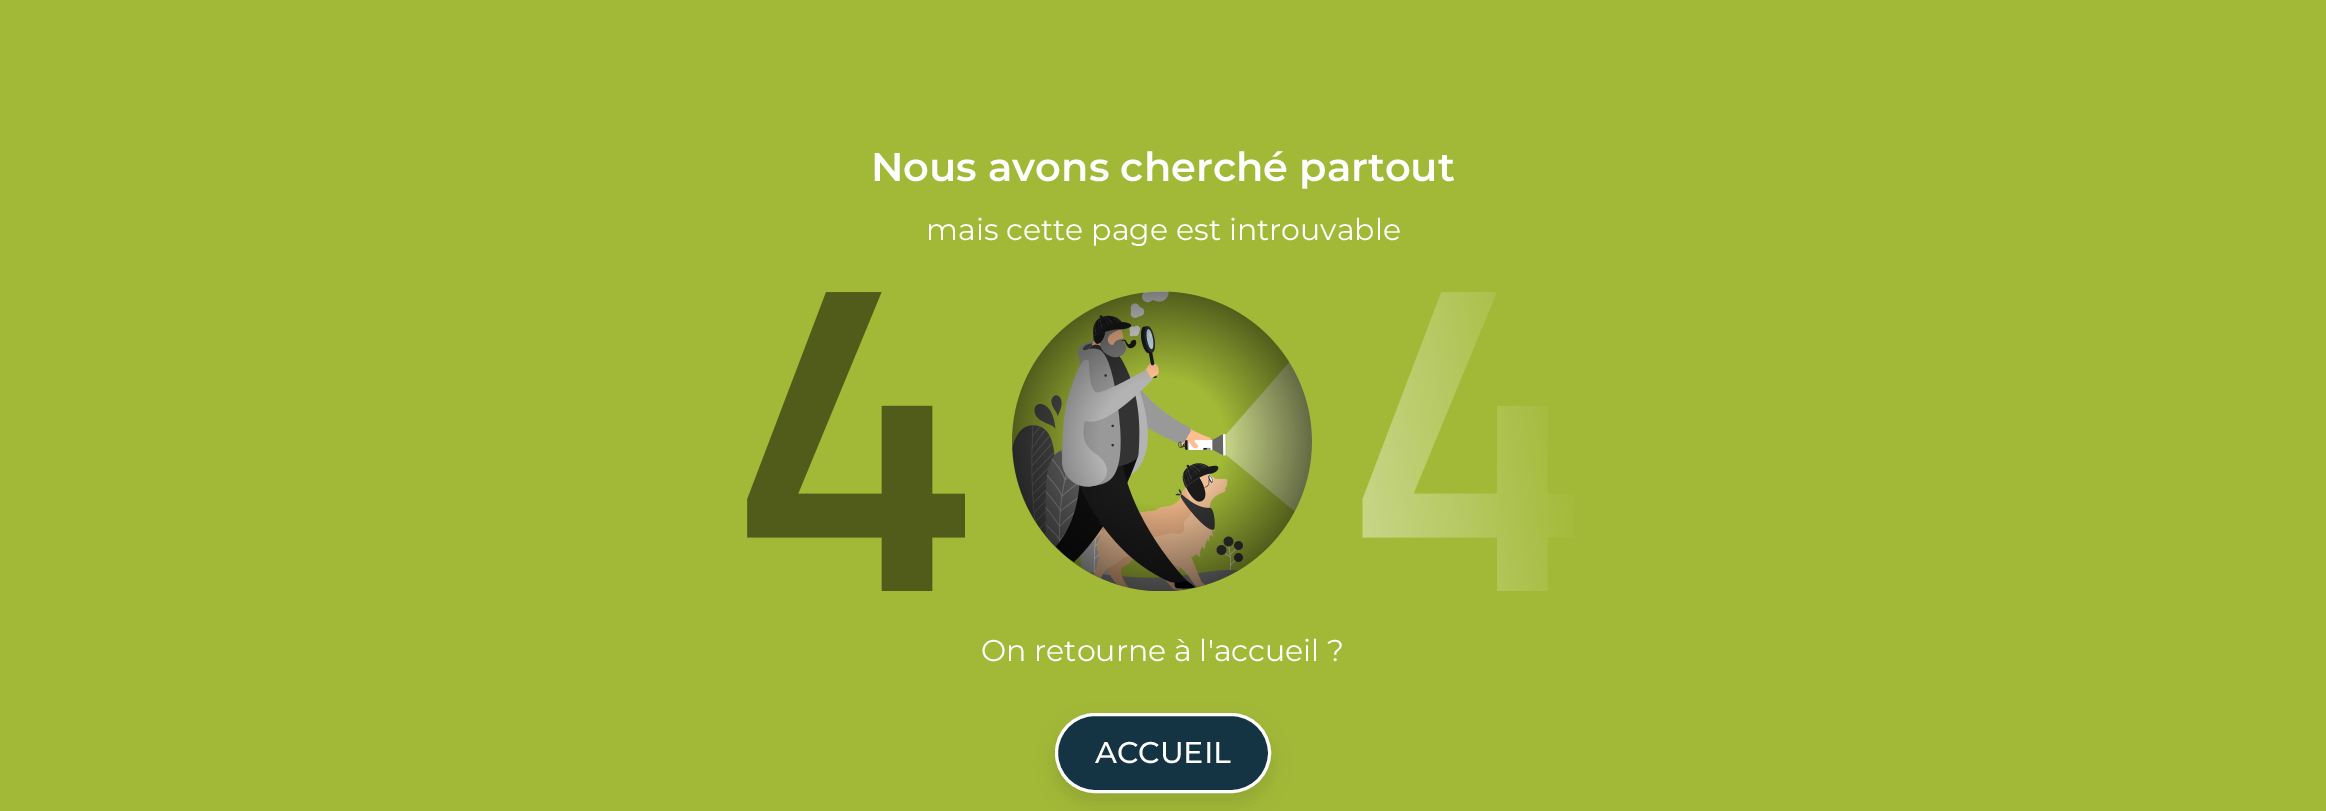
%!PS
<< /PageSize [2326 811] /PageUsesTransparency true >> setpagedevice
/rgb { 3 { 255 div 3 1 roll } repeat setrgbcolor } def
/font { [ exch dup neg 0 0 3 -1 roll 0 0 ] selectfont } def
/text { moveto show } def
/alpha { dup .setfillconstantalpha .setstrokeconstantalpha } def
/roundrect { 5 dict begin { /r /h /w /y /x } { exch def } forall
  x r add y moveto x w add y 2 copy h add r arct x w add y h add x 1 index r arct
  x y h add x y r arct x y 2 copy exch w add exch r arct closepath end } def
/shadow { 12 dict begin { /a /b /q /h /w /y /x } { exch def } forall gsave /was 0 def
  9 -2 -9 { dup b mul 4 div /e exch def 1 sub .425 mul 2.718 exch exp 1 add a .99 .min exch div /now exch def
    1 1 now sub 1 was sub div sub alpha /was now def
    w h .min e 2 mul add 0 gt { x e sub y e sub w e 2 mul add h e 2 mul add
      q e add b .6 mul add w h .min 2 div e add .min 0 .max roundrect fill } if } for grestore end } def
/picture { 5 dict begin { /h /w /y /x /name } { exch def } forall
  gsave x y translate w h scale
  w h 8 [w 0 0 h 0 0] name (r) file false 3 colorimage grestore end } def
0 .pushpdf14devicefilter
0 811 translate 1 -1 scale
4 setmiterlimit
162 185 55 rgb
0 0 2326 811 rectfill
(img_01.rgb) 747 291 827 300 picture
0 0 0 rgb
1055 723 216 80 40 9.5 0.1 shadow
20 52 68 rgb
1056.5 714.5 213 77 38.5 roundrect gsave fill grestore
255 255 255 rgb
3 setlinewidth
stroke
/Montserrat-SemiBold 40 font
(Nous avons cherché partout) 871 181 text
/Montserrat-Regular 30 font
(mais cette page est introuvable) 926 240 text
(On retourne à l'accueil ?) 981 661 text
/Montserrat-Medium 30 font
(ACCUEIL) 1095 763 text
.poppdf14devicefilter showpage
